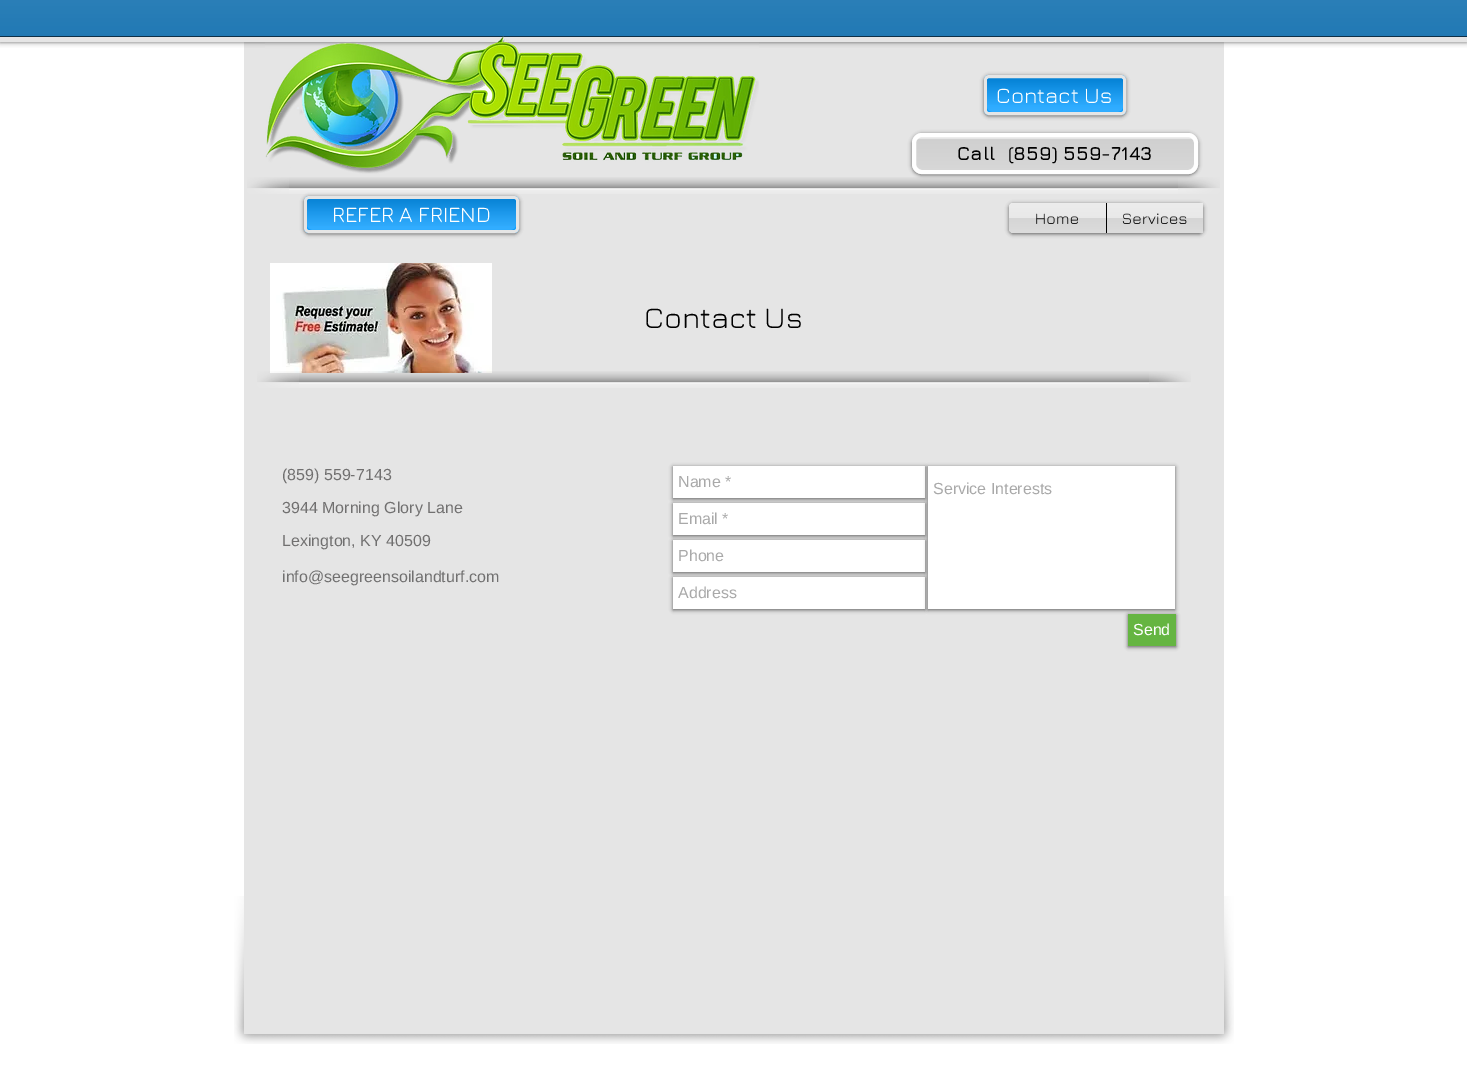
%!PS
<< /PageSize [1467 1069] /PageUsesTransparency true >> setpagedevice
/rgb { 3 { 255 div 3 1 roll } repeat setrgbcolor } def
/font { [ exch dup neg 0 0 3 -1 roll 0 0 ] selectfont } def
/text { moveto show } def
/alpha { dup .setfillconstantalpha .setstrokeconstantalpha } def
/roundrect { 5 dict begin { /r /h /w /y /x } { exch def } forall
  x r add y moveto x w add y 2 copy h add r arct x w add y h add x 1 index r arct
  x y h add x y r arct x y 2 copy exch w add exch r arct closepath end } def
/shadow { 12 dict begin { /a /b /q /h /w /y /x } { exch def } forall gsave /was 0 def
  9 -2 -9 { dup b mul 4 div /e exch def 1 sub .425 mul 2.718 exch exp 1 add a .99 .min exch div /now exch def
    1 1 now sub 1 was sub div sub alpha /was now def
    w h .min e 2 mul add 0 gt { x e sub y e sub w e 2 mul add h e 2 mul add
      q e add b .6 mul add w h .min 2 div e add .min 0 .max roundrect fill } if } for grestore end } def
/picture { 5 dict begin { /h /w /y /x /name } { exch def } forall
  gsave x y translate w h scale
  w h 8 [w 0 0 h 0 0] name (r) file false 3 colorimage grestore end } def
0 .pushpdf14devicefilter
0 1069 translate 1 -1 scale
4 setmiterlimit
255 255 255 rgb
0 0 1467 1069 rectfill
(img_14.rgb) 234 896 45 148 picture
(img_16.rgb) 1189 896 45 148 picture
229 229 229 rgb
244 42 980 992 rectfill
0 0 0 rgb
0 -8 1467 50 0 2.5 0.6 shadow
0 101 169 rgb
0 0 1467 36 rectfill
(img_01.rgb) 0 0 1467 36 picture
13 48 72 rgb
0 36 1467 1 rectfill
229 229 229 rgb
0 37 1467 5 rectfill
(img_02.rgb) 265 36 494 138 picture
0 0 0 rgb
984 76 142 40 5 2 0.6 shadow
0 153 255 rgb
984 75 142 40 5 roundrect fill
(img_03.rgb) 984 78 142 26 picture
229 229 229 rgb
3 setlinewidth
985.5 76.5 139 37 3.5 roundrect stroke
(img_04.rgb) 987 79 136 33 picture
0 0 0 rgb
912 134 286 41 10 2 0.6 shadow
229 229 229 rgb
912 133 286 41 10 roundrect fill
(img_05.rgb) 912 139 286 35 picture
255 255 255 rgb
4 setlinewidth
914 135 282 37 8 roundrect stroke
(img_06.rgb) 289 177 889 17 picture
(img_07.rgb) 247 177 42 17 picture
(img_08.rgb) 1178 177 42 17 picture
0 0 0 rgb
304 197 215 37 5 2 0.6 shadow
0 153 255 rgb
304 196 215 37 5 roundrect fill
(img_09.rgb) 304 199 215 26 picture
229 229 229 rgb
3 setlinewidth
305.5 197.5 212 34 3.5 roundrect stroke
(img_10.rgb) 307 199 209 31 picture
0 0 0 rgb
1009 204 194 30 4 2 0.6 shadow
(img_11.rgb) 1009 203 4 30 picture
229 229 229 rgb
1013 203 moveto 93 0 rlineto 0 30 rlineto -93 0 rlineto -2 0 -4 -2 -4 -4 rcurveto 0 -22 rlineto 0 -2 2 -4 4 -4 rcurveto closepath fill
1107 203 96 30 rectfill
0 0 0 rgb
1106 203 1 30 rectfill
(img_15.rgb) 279 1034 910 10 picture
(img_17.rgb) 270 263 222 110 picture
(img_18.rgb) 299 371 850 17 picture
(img_19.rgb) 257 371 42 17 picture
(img_20.rgb) 1149 371 42 17 picture
673 467 252 32 0 2 0.6 shadow
255 255 255 rgb
673 466 252 32 rectfill
0 0 0 rgb
673 504 252 32 0 2 0.6 shadow
255 255 255 rgb
673 503 252 32 rectfill
0 0 0 rgb
673 541 252 32 0 2 0.6 shadow
255 255 255 rgb
673 540 252 32 rectfill
0 0 0 rgb
673 578 252 32 0 2 0.6 shadow
255 255 255 rgb
673 577 252 32 rectfill
0 0 0 rgb
928 467 247 143 0 2 0.6 shadow
255 255 255 rgb
928 466 247 143 rectfill
0 0 0 rgb
1128 615 48 32 0 2 0.6 shadow
101 181 66 rgb
1128 614 48 32 rectfill
/Jura-Regular 22 font
255 255 255 rgb
(Contact Us) 996 103 text
/Jura-Bold 19 font
0 0 0 rgb
(Call  \(859\) 559-7143) 957 160 text
/Jura-Regular 22 font
255 255 255 rgb
(REFER A FRIEND) 332 222 text
/Jura-Regular 16 font
0 0 0 rgb
(Home) 1035 224 text
(img_12.rgb) 1009 203 97 30 picture
(Services) 1122 224 text
(img_13.rgb) 1107 203 96 30 picture
/Jura-Regular 30 font
(Contact Us) 644 328 text
/LiberationSans-Regular 16 font
113 112 112 rgb
(\(859\) 559-7143) 282 480 text
(3944 Morning Glory Lane) 282 513 text
(Lexington, KY 40509) 282 546 text
(info@seegreensoilandturf.com) 282 582 text
169 169 169 rgb
(Name *) 678 487 text
(Service Interests) 933 494 text
(Email *) 678 524 text
(Phone) 678 561 text
(Address) 678 598 text
255 255 255 rgb
(Send) 1133 635 text
.poppdf14devicefilter showpage
